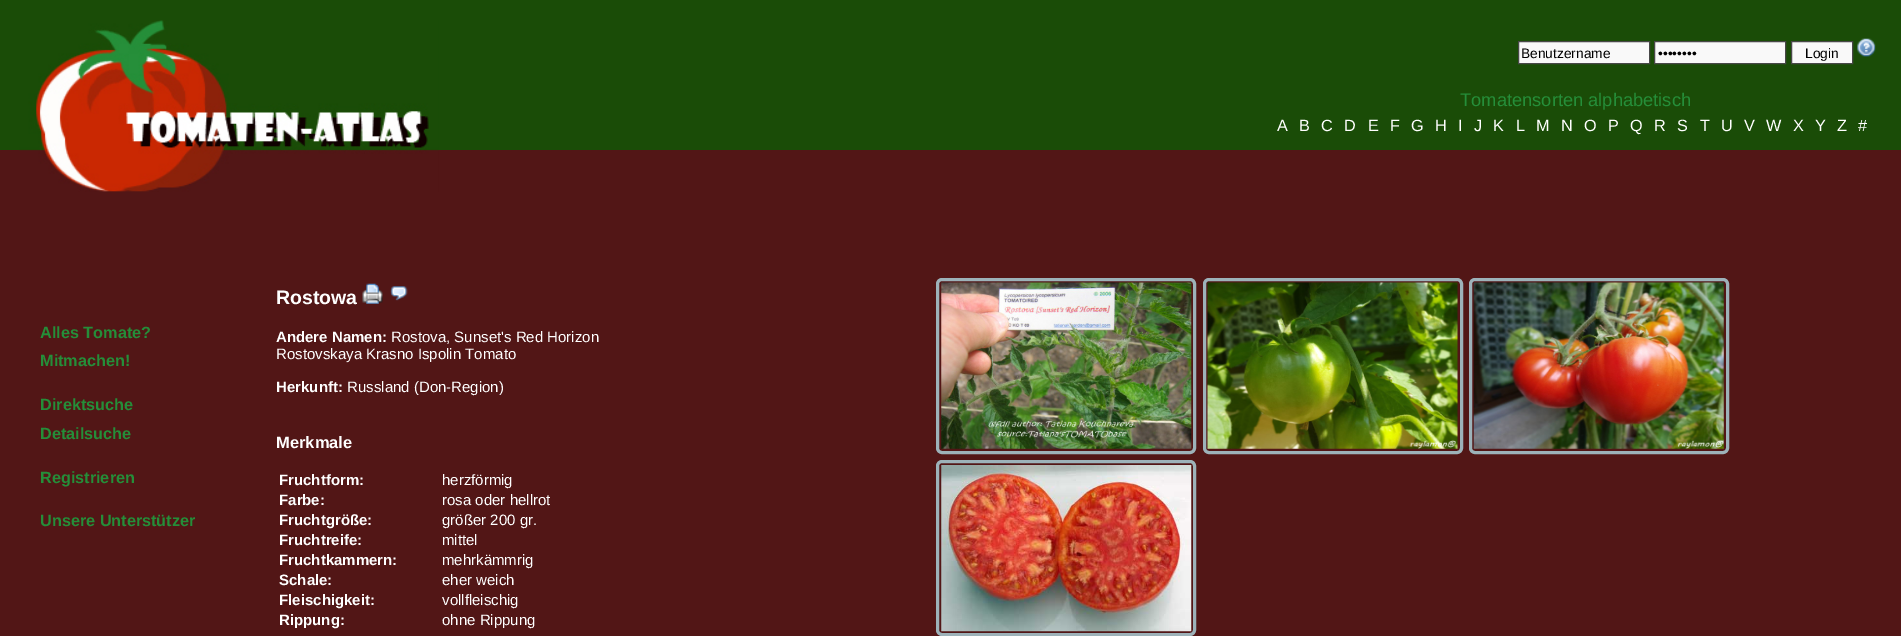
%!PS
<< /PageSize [1901 636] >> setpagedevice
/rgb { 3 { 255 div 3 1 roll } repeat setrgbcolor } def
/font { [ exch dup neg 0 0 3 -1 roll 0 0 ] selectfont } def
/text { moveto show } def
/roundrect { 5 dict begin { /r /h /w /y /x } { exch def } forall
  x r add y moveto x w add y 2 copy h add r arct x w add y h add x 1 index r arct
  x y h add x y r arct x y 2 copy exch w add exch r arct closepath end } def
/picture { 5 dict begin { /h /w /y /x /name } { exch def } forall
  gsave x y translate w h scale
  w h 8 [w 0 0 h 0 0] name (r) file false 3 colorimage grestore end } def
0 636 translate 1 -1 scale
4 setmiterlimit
82 22 22 rgb
0 0 1901 636 rectfill
26 76 7 rgb
0 0 1901 150 rectfill
(img_01.rgb) 19 20 420 172 picture
249 249 249 rgb
1518.5 41.5 moveto 131 0 rlineto 0 22 rlineto -131 0 rlineto closepath gsave fill grestore
72 72 72 rgb
stroke
249 249 249 rgb
1654.5 41.5 moveto 131 0 rlineto 0 22 rlineto -131 0 rlineto closepath gsave fill grestore
72 72 72 rgb
stroke
249 249 249 rgb
1791.5 41.5 moveto 61 0 rlineto 0 22 rlineto -61 0 rlineto closepath gsave fill grestore
72 72 72 rgb
stroke
(img_02.rgb) 1857 38 19 19 picture
(img_03.rgb) 362 283 21 21 picture
(img_04.rgb) 390 286 18 15 picture
157 178 185 rgb
3 setlinewidth
937.5 279.5 257 173 4.5 roundrect stroke
(img_05.rgb) 941 282 251 167 picture
1204.5 279.5 257 173 4.5 roundrect stroke
(img_06.rgb) 1207 282 251 167 picture
1470.5 279.5 257 173 4.5 roundrect stroke
(img_07.rgb) 1473 282 251 167 picture
937.5 461.5 257 173 4.5 roundrect stroke
(img_08.rgb) 941 465 251 167 picture
/LiberationSans-Regular 13.75 font
0 0 0 rgb
(Benutzername) 1521 58 text
(••••••••) 1658 58 text
(Login) 1805 58 text
/LiberationSans-Regular 18.3 font
37 142 57 rgb
(Tomatensorten alphabetisch) 1460 106 text
/LiberationSans-Regular 16.25 font
255 255 255 rgb
(A) 1277 131 text
(B) 1299 131 text
(C) 1321 131 text
(D) 1344 131 text
(E) 1368 131 text
(F) 1390 131 text
(G) 1411 131 text
(H) 1435 131 text
(I) 1458 131 text
(J) 1474 131 text
(K) 1493 131 text
(L) 1516 131 text
(M) 1536 131 text
(N) 1561 131 text
(O) 1584 131 text
(P) 1608 131 text
(Q) 1630 131 text
(R) 1654 131 text
(S) 1677 131 text
(T) 1700 131 text
(U) 1721 131 text
(V) 1744 131 text
(W) 1766 131 text
(X) 1793 131 text
(Y) 1815 131 text
(Z) 1837 131 text
(#) 1858 131 text
/LiberationSans-Bold 16.25 font
37 142 57 rgb
(Alles Tomate?) 40 338 text
(Mitmachen!) 40 366 text
(Direktsuche) 40 410 text
(Detailsuche) 40 439 text
(Registrieren) 40 483 text
(Unsere Unterstützer) 40 526 text
/LiberationSans-Bold 19.5 font
255 255 255 rgb
(Rostowa) 276 304 text
/LiberationSans-Bold 15 font
(Andere Namen:) 276 342 text
/LiberationSans-Regular 15 font
(Rostova, Sunset's Red Horizon) 391 342 text
(Rostovskaya Krasno Ispolin Tomato) 276 359 text
/LiberationSans-Bold 15 font
(Herkunft:) 276 392 text
/LiberationSans-Regular 15 font
(Russland \(Don-Region\)) 347 392 text
/LiberationSans-Bold 16.5 font
(Merkmale) 276 448 text
/LiberationSans-Bold 15 font
(Fruchtform:) 279 485 text
/LiberationSans-Regular 15 font
(herzförmig) 442 485 text
/LiberationSans-Bold 15 font
(Farbe:) 279 505 text
/LiberationSans-Regular 15 font
(rosa oder hellrot) 442 505 text
/LiberationSans-Bold 15 font
(Fruchtgröße:) 279 525 text
/LiberationSans-Regular 15 font
(größer 200 gr.) 442 525 text
/LiberationSans-Bold 15 font
(Fruchtreife:) 279 545 text
/LiberationSans-Regular 15 font
(mittel) 442 545 text
/LiberationSans-Bold 15 font
(Fruchtkammern:) 279 565 text
/LiberationSans-Regular 15 font
(mehrkämmrig) 442 565 text
/LiberationSans-Bold 15 font
(Schale:) 279 585 text
/LiberationSans-Regular 15 font
(eher weich) 442 585 text
/LiberationSans-Bold 15 font
(Fleischigkeit:) 279 605 text
/LiberationSans-Regular 15 font
(vollfleischig) 442 605 text
/LiberationSans-Bold 15 font
(Rippung:) 279 625 text
/LiberationSans-Regular 15 font
(ohne Rippung) 442 625 text
showpage
